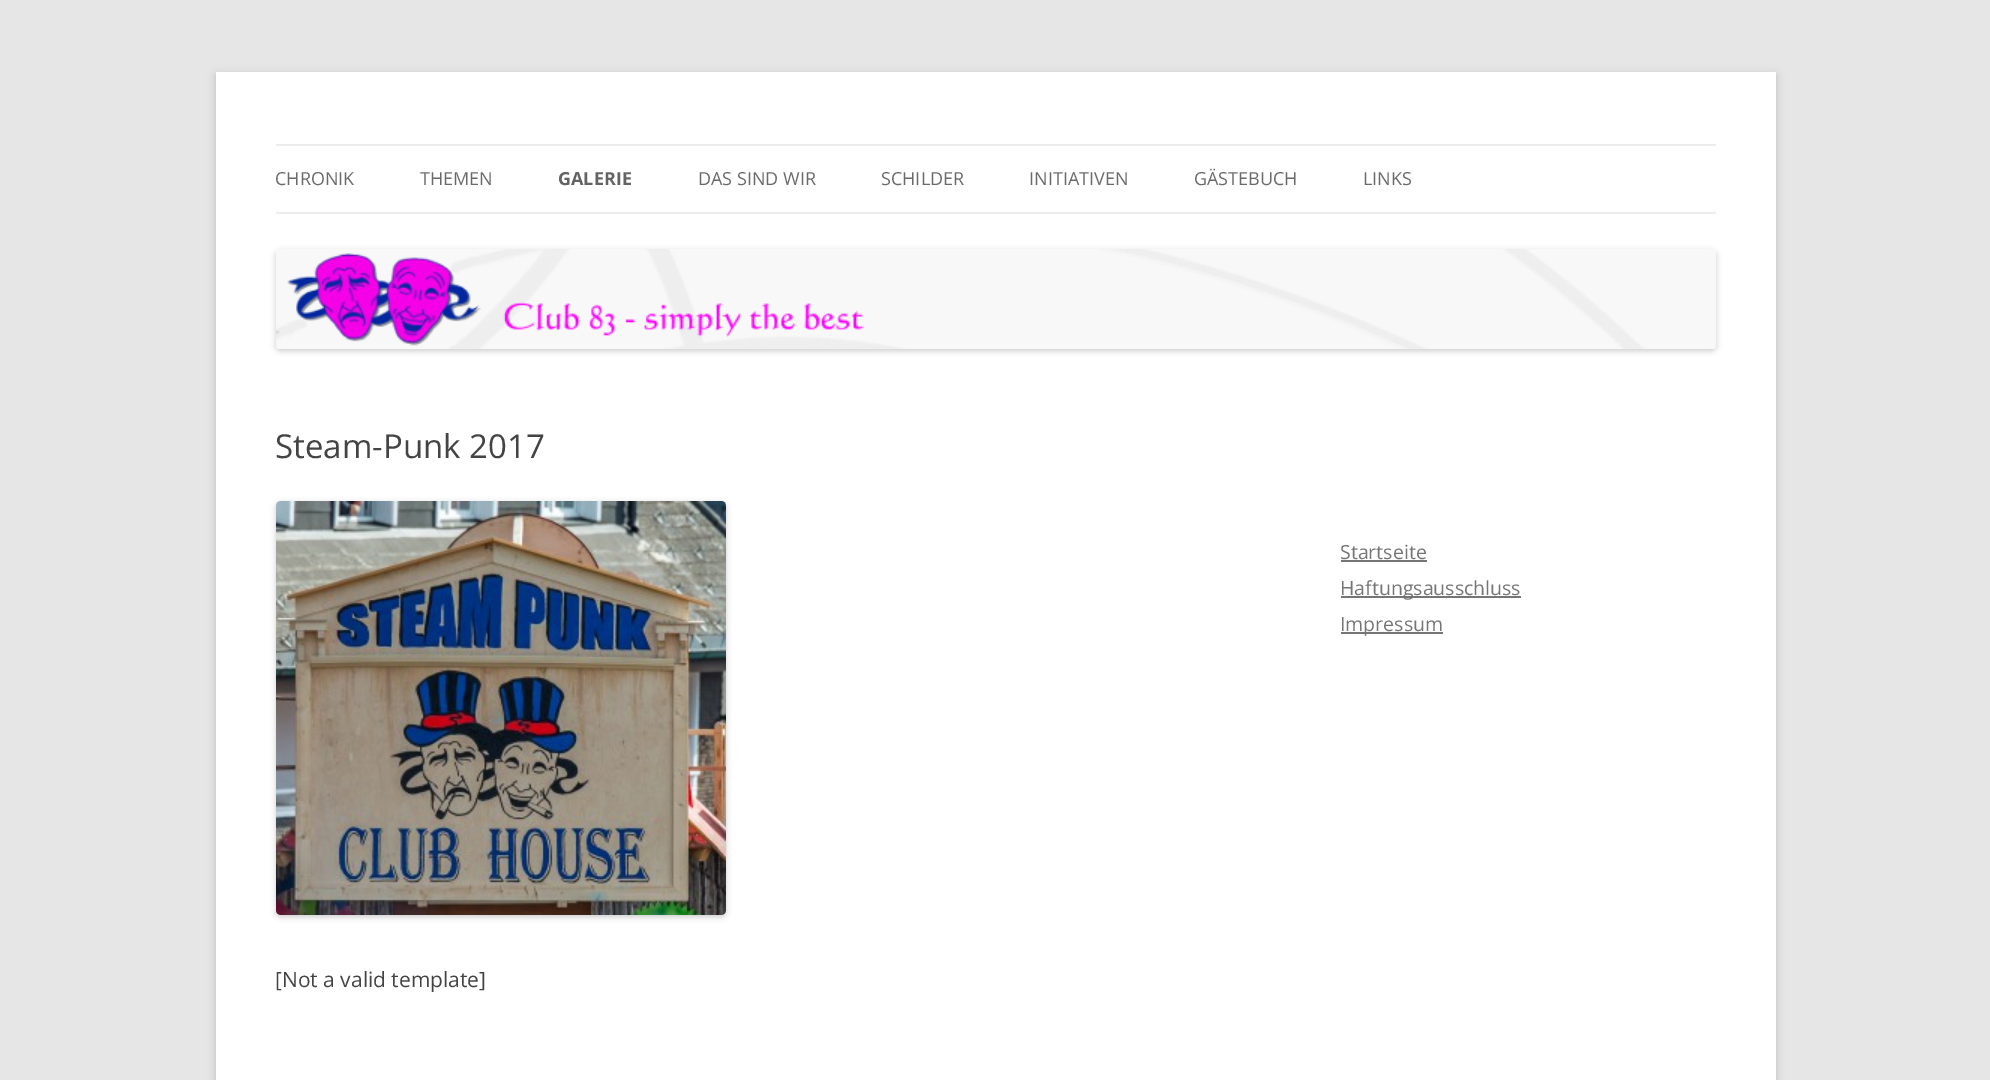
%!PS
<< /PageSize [1990 1080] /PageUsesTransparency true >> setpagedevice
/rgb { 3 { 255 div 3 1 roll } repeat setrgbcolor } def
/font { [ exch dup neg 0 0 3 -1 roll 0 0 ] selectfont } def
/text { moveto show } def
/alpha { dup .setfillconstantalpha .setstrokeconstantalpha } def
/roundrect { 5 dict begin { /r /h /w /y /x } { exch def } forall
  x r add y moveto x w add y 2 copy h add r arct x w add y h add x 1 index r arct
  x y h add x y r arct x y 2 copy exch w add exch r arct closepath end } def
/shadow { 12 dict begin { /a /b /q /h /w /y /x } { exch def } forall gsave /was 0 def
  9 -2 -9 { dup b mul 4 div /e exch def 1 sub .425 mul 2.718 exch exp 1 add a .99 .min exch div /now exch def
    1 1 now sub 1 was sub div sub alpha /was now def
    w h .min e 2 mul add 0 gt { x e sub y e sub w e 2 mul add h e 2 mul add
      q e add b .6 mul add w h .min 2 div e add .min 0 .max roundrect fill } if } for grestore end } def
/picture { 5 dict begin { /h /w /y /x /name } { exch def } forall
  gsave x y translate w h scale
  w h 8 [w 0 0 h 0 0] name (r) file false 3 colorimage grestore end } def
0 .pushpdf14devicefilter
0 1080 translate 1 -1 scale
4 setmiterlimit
230 230 230 rgb
0 0 1990 1080 rectfill
100 100 100 rgb
216 75 1560 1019 0 4.5 0.3 shadow
255 255 255 rgb
216 72 1560 1008 rectfill
237 237 237 rgb
276 144 1440 2 rectfill
276 212 1440 2 rectfill
0 0 0 rgb
276 251 1440 100 5 3 0.2 shadow
(img_01.rgb) 276 249 1440 100 picture
276 503 450 414 5 3 0.2 shadow
(img_02.rgb) 276 501 450 414 picture
117 117 117 rgb
1341 560 86 2 rectfill
1341 596 180 2 rectfill
1341 632 102 2 rectfill
/OpenSans-Regular 18 font
106 106 106 rgb
(CHRONIK) 275 185 text
(THEMEN) 420 185 text
/OpenSans-Bold 18 font
99 99 99 rgb
(GALERIE) 558 185 text
/OpenSans-Regular 18 font
106 106 106 rgb
(DAS SIND WIR) 698 185 text
(SCHILDER) 881 185 text
(INITIATIVEN) 1029 185 text
(GÄSTEBUCH) 1194 185 text
(LINKS) 1363 185 text
/OpenSans-Regular 33 font
68 68 68 rgb
(Steam-Punk 2017) 275 458 text
/OpenSans-Regular 21 font
([Not a valid template]) 275 987 text
/OpenSans-Regular 19.5 font
117 117 117 rgb
(Startseite) 1340 559 text
(Haftungsausschluss) 1340 595 text
(Impressum) 1340 631 text
.poppdf14devicefilter showpage
